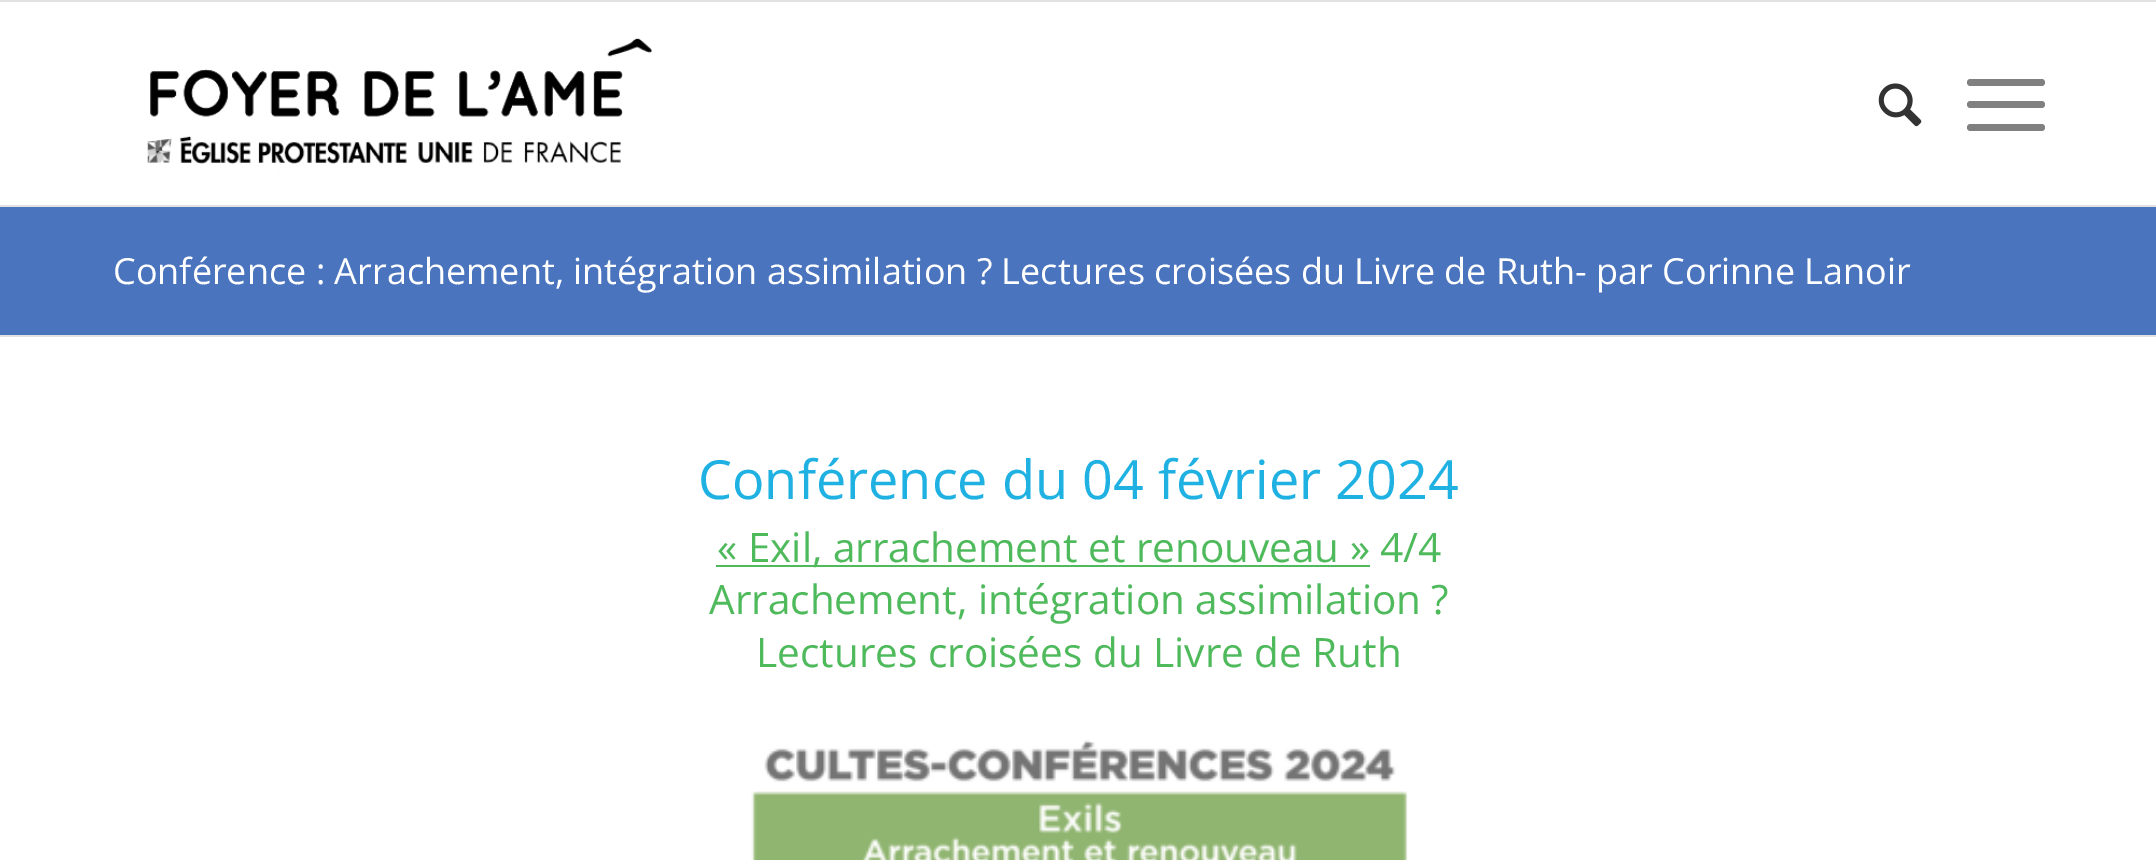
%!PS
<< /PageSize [2156 860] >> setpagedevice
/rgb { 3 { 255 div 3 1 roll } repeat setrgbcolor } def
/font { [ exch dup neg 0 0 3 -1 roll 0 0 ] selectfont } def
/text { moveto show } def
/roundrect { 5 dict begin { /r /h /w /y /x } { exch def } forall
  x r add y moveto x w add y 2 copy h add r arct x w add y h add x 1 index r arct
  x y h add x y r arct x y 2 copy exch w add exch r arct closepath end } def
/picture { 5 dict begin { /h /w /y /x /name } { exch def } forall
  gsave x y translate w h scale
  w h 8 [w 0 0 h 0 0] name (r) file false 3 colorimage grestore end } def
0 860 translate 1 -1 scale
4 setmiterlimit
255 255 255 rgb
0 0 2156 860 rectfill
225 225 225 rgb
0 0 2156 2 rectfill
0 205 2156 2 rectfill
(img_01.rgb) 147 38 506 132 picture
(img_02.rgb) 1878 83 44 44 picture
128 128 128 rgb
1967 101 78 7 3.5 roundrect fill
1967 79 78 7 3.5 roundrect fill
1967 124 78 7 3.5 roundrect fill
74 116 189 rgb
0 207 2156 128 rectfill
225 225 225 rgb
0 335 2156 2 rectfill
78 186 92 rgb
716 565 654 2 rectfill
(img_03.rgb) 751 740 657 120 picture
/OpenSans-Regular 36 font
255 255 255 rgb
(Conférence : Arrachement, intégration assimilation ? Lectures croisées du Livre de Ruth- par Corinne Lanoir) 113 284 text
/OpenSans-Regular 54 font
31 177 226 rgb
(Conférence du 04 février 2024) 698 499 text
/OpenSans-Regular 40.5 font
78 186 92 rgb
(« Exil, arrachement et renouveau » 4/4) 717 562 text
(Arrachement, intégration assimilation ?) 709 614 text
(Lectures croisées du Livre de Ruth) 756 667 text
showpage
